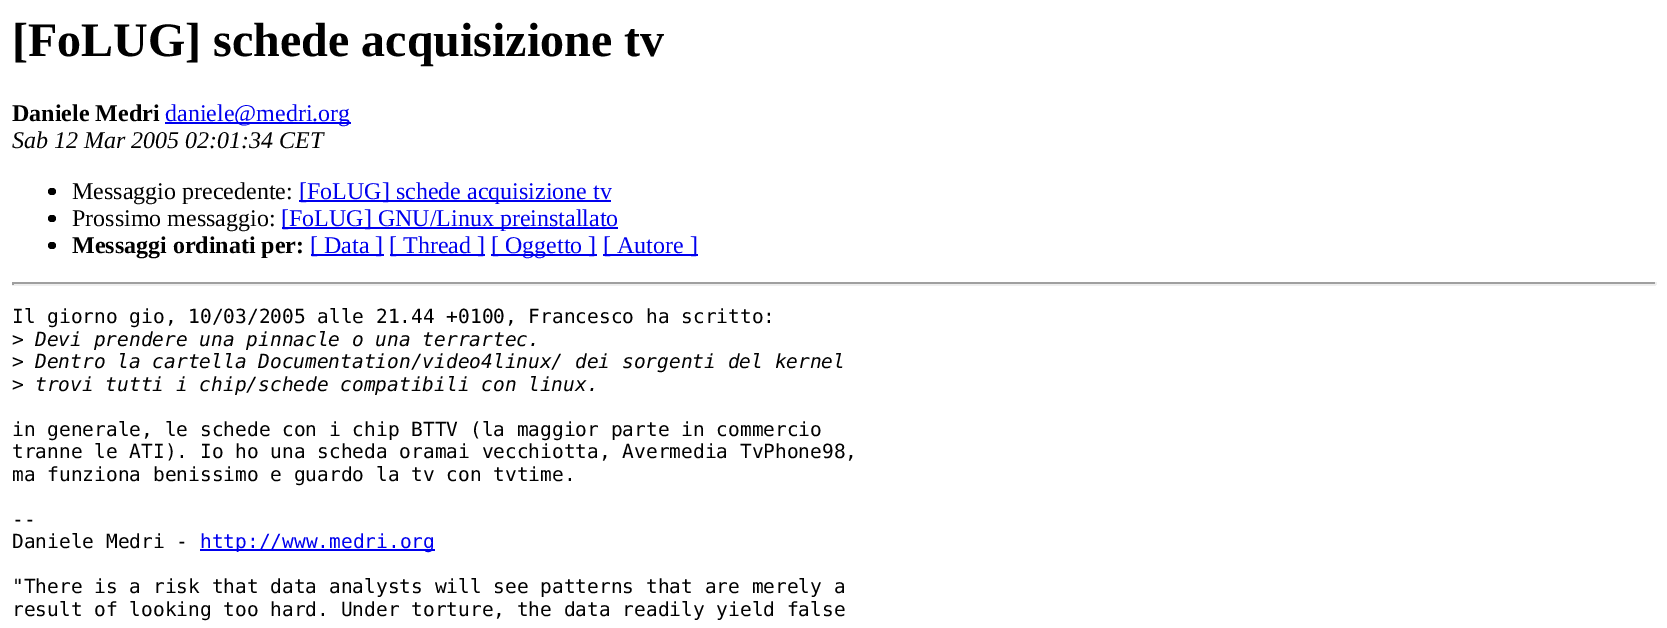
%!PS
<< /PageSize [1667 628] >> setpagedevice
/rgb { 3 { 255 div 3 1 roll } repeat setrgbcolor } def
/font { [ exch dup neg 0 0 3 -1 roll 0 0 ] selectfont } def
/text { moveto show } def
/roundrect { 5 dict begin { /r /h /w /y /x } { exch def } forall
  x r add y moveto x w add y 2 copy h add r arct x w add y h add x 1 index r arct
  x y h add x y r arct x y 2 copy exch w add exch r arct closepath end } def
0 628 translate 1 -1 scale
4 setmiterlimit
255 255 255 rgb
0 0 1667 628 rectfill
0 0 238 rgb
165 122 186 2 rectfill
0 0 0 rgb
48 188 8 7 3.5 roundrect fill
0 0 238 rgb
299 200 312 2 rectfill
0 0 0 rgb
48 215 8 7 3.5 roundrect fill
0 0 238 rgb
282 227 336 2 rectfill
0 0 0 rgb
48 242 8 7 3.5 roundrect fill
0 0 238 rgb
311 254 73 2 rectfill
390 254 95 2 rectfill
491 254 106 2 rectfill
603 254 95 2 rectfill
159 159 159 rgb
12 282 1644 2 rectfill
238 238 238 rgb
1655 282 2 3 rectfill
12 284 1644 2 rectfill
159 159 159 rgb
12 282 2 3 rectfill
0 0 238 rgb
200 549 235 2 rectfill
/LiberationSerif-Bold 48 font
0 0 0 rgb
([FoLUG] schede acquisizione tv) 12 56 text
/LiberationSerif-Bold 24 font
(Daniele Medri) 12 121 text
/LiberationSerif-Regular 24 font
0 0 238 rgb
(daniele@medri.org) 165 121 text
/LiberationSerif-Italic 24 font
0 0 0 rgb
(Sab 12 Mar 2005 02:01:34 CET) 12 148 text
/LiberationSerif-Regular 24 font
(Messaggio precedente:) 72 199 text
0 0 238 rgb
([FoLUG] schede acquisizione tv) 299 199 text
0 0 0 rgb
(Prossimo messaggio:) 72 226 text
0 0 238 rgb
([FoLUG] GNU/Linux preinstallato) 281 226 text
/LiberationSerif-Bold 24 font
0 0 0 rgb
(Messaggi ordinati per:) 72 253 text
/LiberationSerif-Regular 24 font
0 0 238 rgb
([ Data ]) 310 253 text
([ Thread ]) 389 253 text
([ Oggetto ]) 491 253 text
([ Autore ]) 603 253 text
/DejaVuSansMono-Regular 19.5 font
0 0 0 rgb
(Il giorno gio, 10/03/2005 alle 21.44 +0100, Francesco ha scritto:) 12 323 text
(>) 12 346 text
/DejaVuSansMono-Italic 19.5 font
(Devi prendere una pinnacle o una terrartec.) 35 346 text
/DejaVuSansMono-Regular 19.5 font
(>) 12 368 text
/DejaVuSansMono-Italic 19.5 font
(Dentro la cartella Documentation/video4linux/ dei sorgenti del kernel) 35 368 text
/DejaVuSansMono-Regular 19.5 font
(>) 12 391 text
/DejaVuSansMono-Italic 19.5 font
(trovi tutti i chip/schede compatibili con linux.) 35 391 text
/DejaVuSansMono-Regular 19.5 font
(in generale, le schede con i chip BTTV \(la maggior parte in commercio) 12 436 text
(tranne le ATI\). Io ho una scheda oramai vecchiotta, Avermedia TvPhone98,) 12 458 text
(ma funziona benissimo e guardo la tv con tvtime.) 12 481 text
(--) 12 526 text
(Daniele Medri -) 12 548 text
0 0 238 rgb
(http://www.medri.org) 200 548 text
0 0 0 rgb
("There is a risk that data analysts will see patterns that are merely a) 12 593 text
(result of looking too hard. Under torture, the data readily yield false) 12 616 text
showpage
